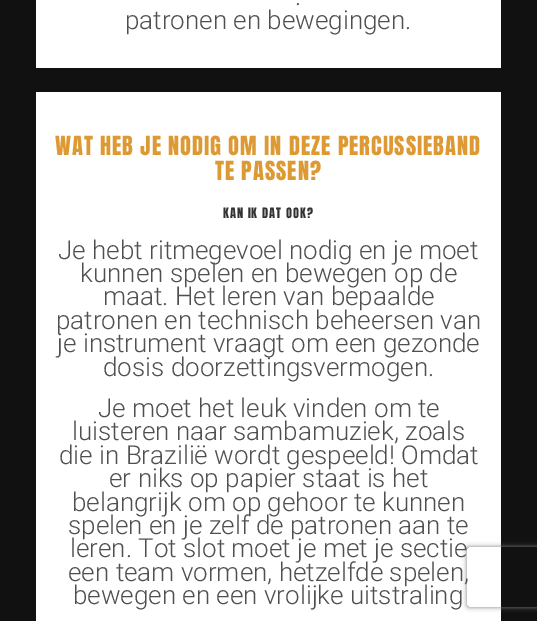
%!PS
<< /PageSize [537 621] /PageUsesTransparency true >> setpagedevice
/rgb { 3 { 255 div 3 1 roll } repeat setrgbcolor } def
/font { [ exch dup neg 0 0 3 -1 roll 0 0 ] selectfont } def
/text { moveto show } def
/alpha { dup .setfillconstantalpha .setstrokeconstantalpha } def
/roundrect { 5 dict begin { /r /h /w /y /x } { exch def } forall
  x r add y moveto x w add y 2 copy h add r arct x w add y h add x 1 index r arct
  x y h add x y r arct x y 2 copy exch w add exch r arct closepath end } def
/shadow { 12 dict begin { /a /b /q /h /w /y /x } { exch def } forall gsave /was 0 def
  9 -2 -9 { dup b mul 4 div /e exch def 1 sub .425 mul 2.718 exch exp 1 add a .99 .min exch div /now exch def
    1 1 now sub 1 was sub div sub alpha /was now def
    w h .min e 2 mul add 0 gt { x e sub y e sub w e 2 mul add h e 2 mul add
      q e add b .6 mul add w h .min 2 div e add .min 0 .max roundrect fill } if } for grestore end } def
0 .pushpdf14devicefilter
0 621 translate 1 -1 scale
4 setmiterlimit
17 17 17 rgb
0 0 537 621 rectfill
255 255 255 rgb
36 0 465 68 rectfill
36 92 465 529 rectfill
gsave
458 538 moveto 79 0 rlineto 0 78 rlineto -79 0 rlineto closepath 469 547 moveto 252 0 rlineto 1 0 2 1 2 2 rcurveto 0 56 rlineto 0 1 -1 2 -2 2 rcurveto -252 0 rlineto -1 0 -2 -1 -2 -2 rcurveto 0 -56 rlineto 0 -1 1 -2 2 -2 rcurveto closepath eoclip newpath
128 128 128 rgb
467 547 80 60 2 2.5 1 shadow
grestore
/Roboto-Light 26 font
79 79 79 rgb
(.) 295 5 text
(patronen en bewegingen.) 125 29 text
/Anton-Regular 22.4 font
221 153 51 rgb
55 155 moveto 1 0 (WAT HEB JE NODIG OM IN DEZE PERCUSSIEBAND) ashow
215 180 moveto 1 0 (TE PASSEN?) ashow
/Anton-Regular 12.25 font
51 51 51 rgb
223 218 moveto 1 0 (KAN IK DAT OOK?) ashow
/Roboto-Light 26 font
79 79 79 rgb
(Je hebt ritmegevoel nodig en je moet) 58 259 text
(kunnen spelen en bewegen op de) 80 282 text
(maat. Het leren van bepaalde) 103 305 text
(patronen en technisch beheersen van) 56 329 text
(je instrument vraagt om een gezonde) 57 352 text
(dosis doorzettingsvermogen.) 103 376 text
(Je moet het leuk vinden om te) 98 417 text
(luisteren naar sambamuziek, zoals) 72 440 text
(die in Brazilië wordt gespeeld! Omdat) 59 464 text
(er niks op papier staat is het) 109 487 text
(belangrijk om op gehoor te kunnen) 72 511 text
(spelen en je zelf de patronen aan te) 68 534 text
(leren. Tot slot moet je met je sectie) 70 557 text
(een team vormen, hetzelfde spelen,) 68 581 text
(bewegen en een vrolijke uitstraling) 73 604 text
.poppdf14devicefilter showpage
